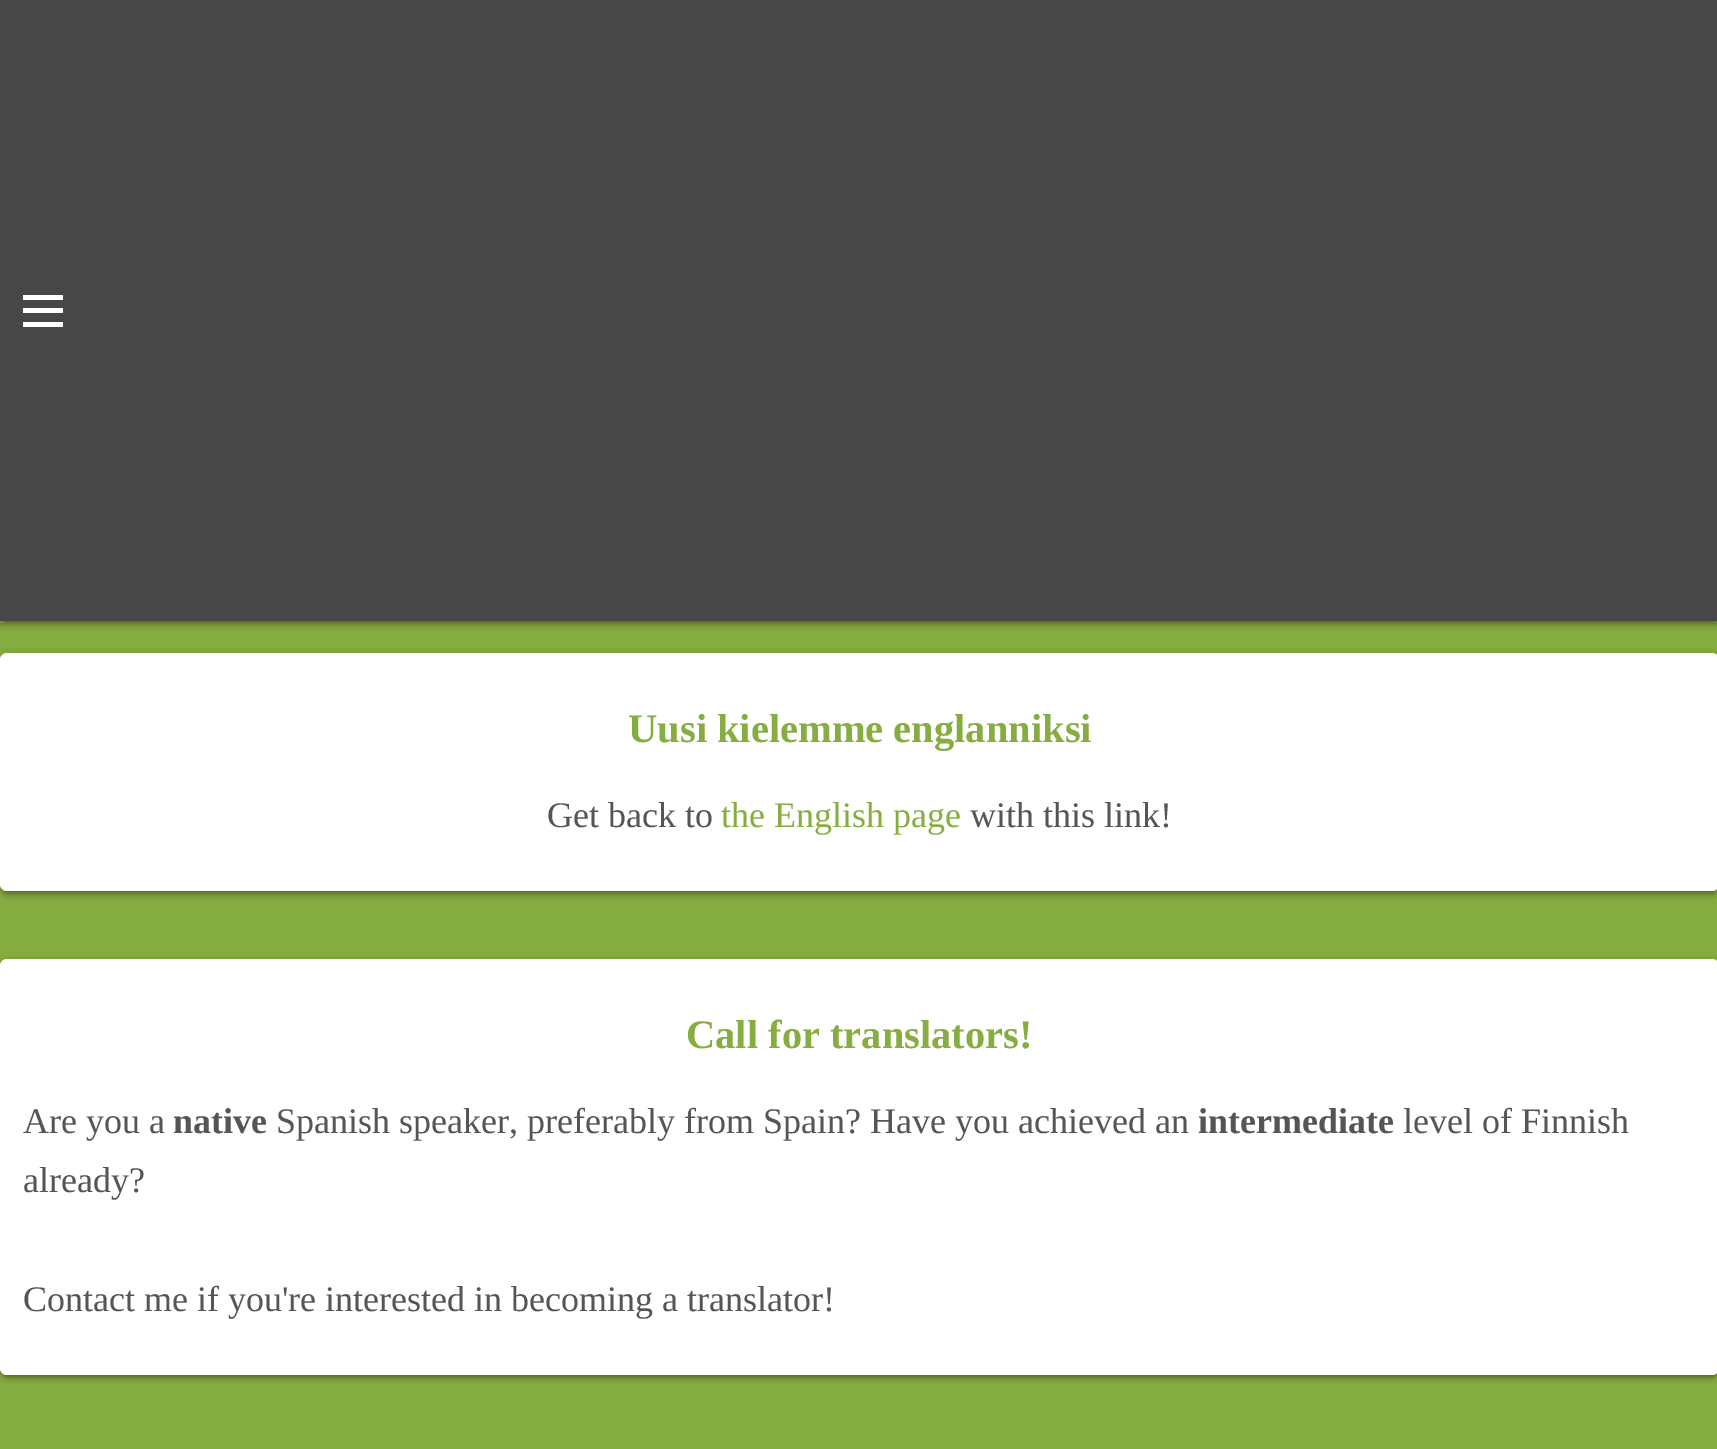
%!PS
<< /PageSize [1717 1449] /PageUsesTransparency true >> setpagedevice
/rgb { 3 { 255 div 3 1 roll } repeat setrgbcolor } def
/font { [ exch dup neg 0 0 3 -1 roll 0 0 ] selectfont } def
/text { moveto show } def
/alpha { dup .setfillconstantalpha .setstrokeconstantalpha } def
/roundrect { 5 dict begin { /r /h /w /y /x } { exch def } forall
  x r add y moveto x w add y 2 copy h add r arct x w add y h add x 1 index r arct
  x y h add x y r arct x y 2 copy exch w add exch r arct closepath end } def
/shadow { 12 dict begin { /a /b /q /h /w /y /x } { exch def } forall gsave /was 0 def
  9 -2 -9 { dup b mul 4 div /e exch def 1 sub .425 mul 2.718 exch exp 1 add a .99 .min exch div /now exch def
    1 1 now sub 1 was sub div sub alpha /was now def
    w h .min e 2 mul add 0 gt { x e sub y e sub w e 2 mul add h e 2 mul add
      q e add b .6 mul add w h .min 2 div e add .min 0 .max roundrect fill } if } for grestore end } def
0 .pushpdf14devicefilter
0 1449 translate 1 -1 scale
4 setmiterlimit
134 173 64 rgb
0 0 1717 1449 rectfill
0 0 0 rgb
0 2 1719 621 0 5.5 0.2 shadow
5 11 1710 612 0 1 0.12 shadow
0 5 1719 621 0 2 0.14 shadow
71 71 71 rgb
0 0 1717 621 rectfill
255 255 255 rgb
23 308 40 5 rectfill
23 295 40 5 rectfill
23 322 40 5 rectfill
0 0 0 rgb
0 655 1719 238 7 5.5 0.2 shadow
5 664 1710 229 2 1 0.12 shadow
0 657 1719 239 7 2 0.14 shadow
255 255 255 rgb
0 653 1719 238 7 roundrect fill
0 0 0 rgb
0 961 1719 416 7 5.5 0.2 shadow
5 970 1710 407 2 1 0.12 shadow
0 963 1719 416 7 2 0.14 shadow
255 255 255 rgb
0 959 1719 416 7 roundrect fill
/LiberationSerif-Bold 40.5 font
134 173 64 rgb
(Uusi kielemme englanniksi) 628 742 text
/LiberationSerif-Regular 36 font
85 85 85 rgb
(Get back to) 547 827 text
134 173 64 rgb
(the English page) 721 827 text
85 85 85 rgb
(with this link!) 970 827 text
/LiberationSerif-Bold 40.5 font
134 173 64 rgb
(Call for translators!) 686 1048 text
/LiberationSerif-Regular 36 font
85 85 85 rgb
(Are you a) 23 1133 text
/LiberationSerif-Bold 36 font
(native) 173 1133 text
/LiberationSerif-Regular 36 font
(Spanish speaker, preferably from Spain? Have you achieved an) 276 1133 text
/LiberationSerif-Bold 36 font
(intermediate) 1198 1133 text
/LiberationSerif-Regular 36 font
(level of Finnish) 1403 1133 text
(already?) 23 1192 text
(Contact me if you're interested in becoming a translator!) 23 1311 text
.poppdf14devicefilter showpage
